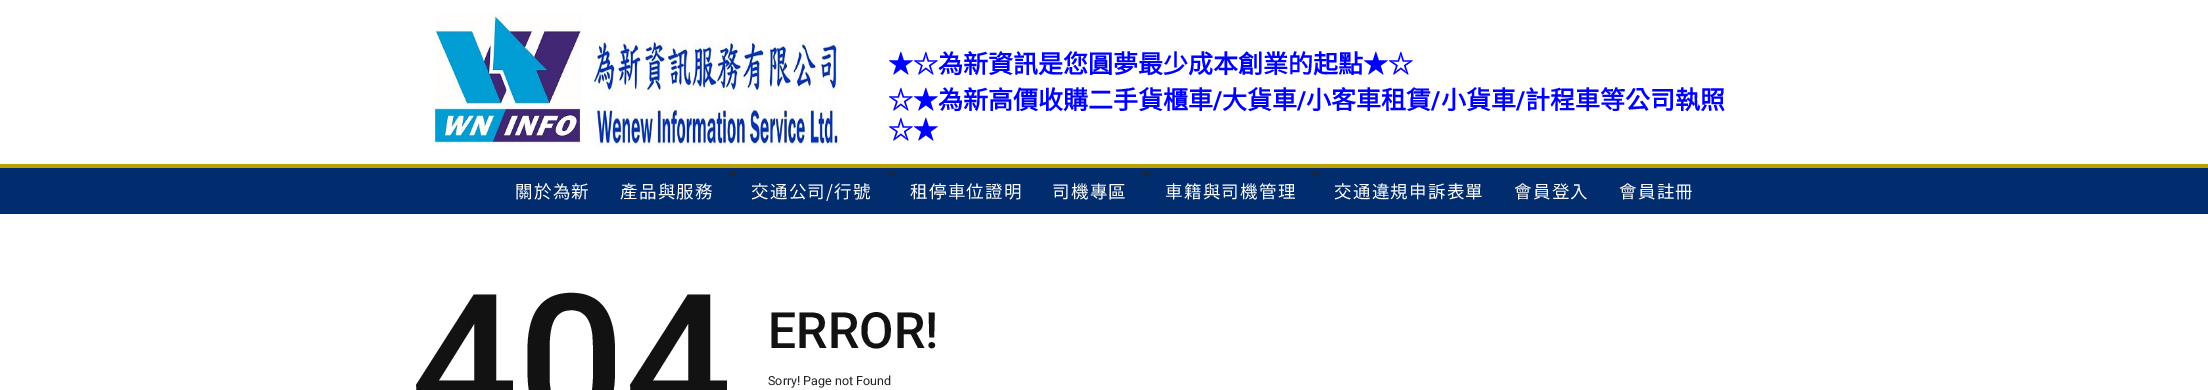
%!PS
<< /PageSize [2208 390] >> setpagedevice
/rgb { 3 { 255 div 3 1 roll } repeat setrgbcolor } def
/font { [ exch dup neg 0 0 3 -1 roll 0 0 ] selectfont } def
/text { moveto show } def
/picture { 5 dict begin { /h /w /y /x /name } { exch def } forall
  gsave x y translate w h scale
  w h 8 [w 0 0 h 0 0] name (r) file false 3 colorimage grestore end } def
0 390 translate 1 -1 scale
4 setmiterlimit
255 255 255 rgb
0 0 2208 390 rectfill
(img_01.rgb) 430 12 410 136 picture
1 44 109 rgb
0 168 2208 46 rectfill
191 159 0 rgb
0 164 2208 4 rectfill
(img_02.rgb) 728 171 9 6 picture
(img_03.rgb) 887 171 9 6 picture
(img_03.rgb) 1142 171 9 6 picture
(img_04.rgb) 1311 171 8 6 picture
/NotoSansCJKTC-Bold 25 font
0 0 255 rgb
(★☆為新資訊是您圓夢最少成本創業的起點★☆) 888 73 text
(☆★為新高價收購二手貨櫃車) 888 109 text
/Roboto-Bold 25 font
(/) 1213 109 text
/NotoSansCJKTC-Bold 25 font
(大貨車) 1222 109 text
/Roboto-Bold 25 font
(/) 1297 109 text
/NotoSansCJKTC-Bold 25 font
(小客車租賃) 1306 109 text
/Roboto-Bold 25 font
(/) 1431 109 text
/NotoSansCJKTC-Bold 25 font
(小貨車) 1441 109 text
/Roboto-Bold 25 font
(/) 1516 109 text
/NotoSansCJKTC-Bold 25 font
(計程車等公司執照) 1525 109 text
(☆★) 888 139 text
/NotoSansJP-Regular 17.5 font
255 255 255 rgb
515 198 moveto 1.25 0 (關於為新) ashow
620 198 moveto 1.25 0 (產品與服務) ashow
751 198 moveto 1.25 0 (交通公司/行號) ashow
910 198 moveto 1.25 0 (租停車位證明) ashow
1052 198 moveto 1.25 0 (司機專區) ashow
1165 198 moveto 1.25 0 (車籍與司機管理) ashow
1334 198 moveto 1.25 0 (交通違規申訴表單) ashow
1514 198 moveto 1.25 0 (會員登入) ashow
1619 198 moveto 1.25 0 (會員註冊) ashow
/Roboto-Medium 188 font
18 18 18 rgb
(404) 411 428 text
/Roboto-Medium 50 font
(ERROR!) 768 348 text
/Roboto-Regular 12.5 font
33 37 41 rgb
(Sorry! Page not Found) 768 385 text
showpage
